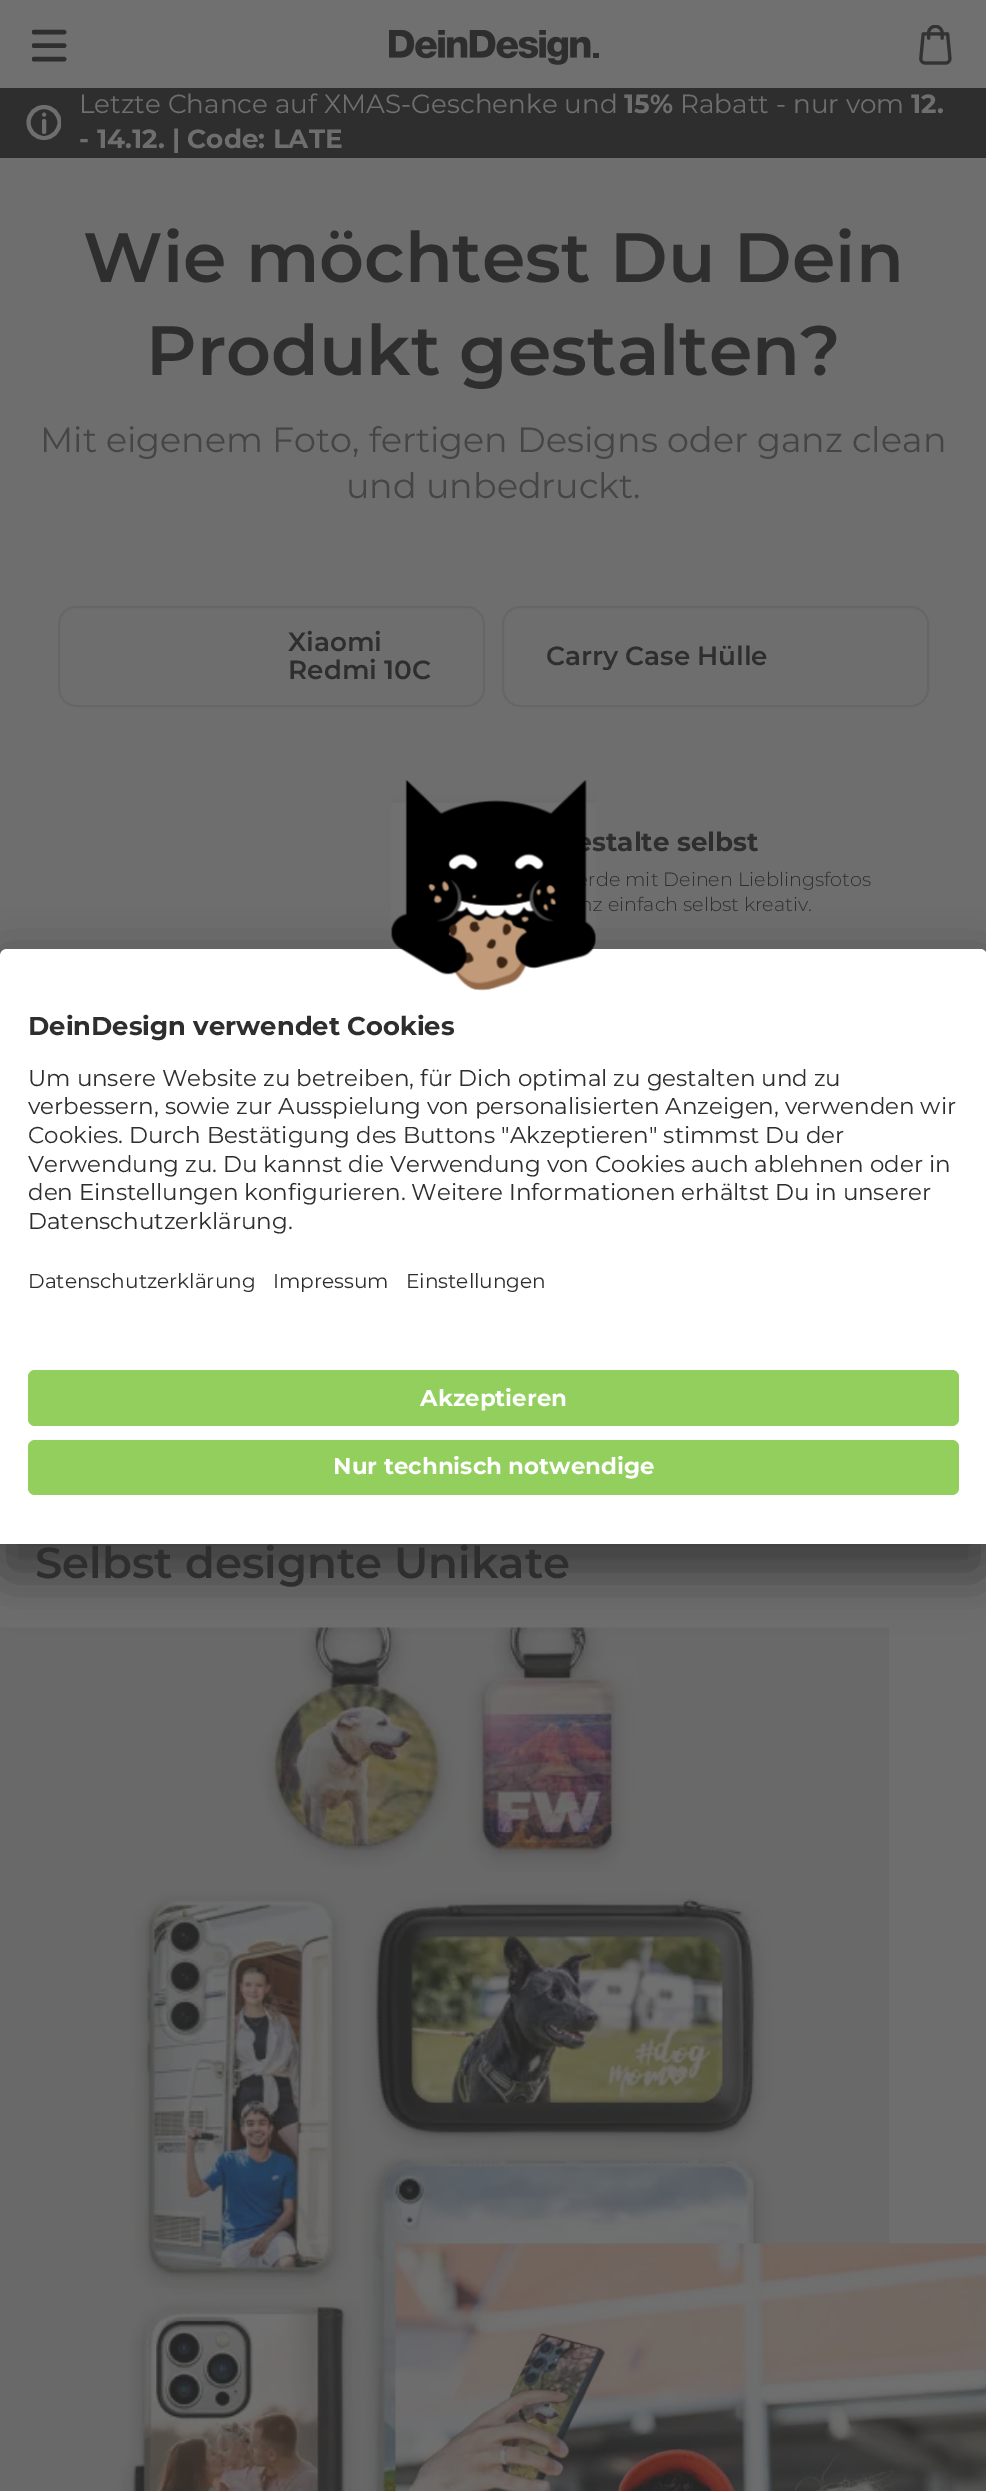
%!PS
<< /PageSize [986 2491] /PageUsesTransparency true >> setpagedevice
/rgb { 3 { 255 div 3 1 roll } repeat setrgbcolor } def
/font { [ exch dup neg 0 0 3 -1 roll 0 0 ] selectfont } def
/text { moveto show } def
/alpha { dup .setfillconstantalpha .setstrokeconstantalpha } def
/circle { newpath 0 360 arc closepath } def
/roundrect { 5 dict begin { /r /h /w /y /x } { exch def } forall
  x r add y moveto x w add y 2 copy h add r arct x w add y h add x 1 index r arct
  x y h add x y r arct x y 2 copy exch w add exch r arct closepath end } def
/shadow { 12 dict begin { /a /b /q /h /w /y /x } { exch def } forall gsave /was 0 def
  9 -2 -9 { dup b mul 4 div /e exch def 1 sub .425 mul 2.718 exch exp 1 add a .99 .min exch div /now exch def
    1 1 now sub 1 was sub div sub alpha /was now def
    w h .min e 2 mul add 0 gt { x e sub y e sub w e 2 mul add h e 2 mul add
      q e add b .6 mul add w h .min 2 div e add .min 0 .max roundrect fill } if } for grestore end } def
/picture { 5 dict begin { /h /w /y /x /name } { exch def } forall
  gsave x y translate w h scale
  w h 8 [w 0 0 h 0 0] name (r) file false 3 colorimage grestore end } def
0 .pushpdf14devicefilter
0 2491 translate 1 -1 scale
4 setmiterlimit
110 110 110 rgb
0 0 986 2491 rectfill
46 46 46 rgb
0 88 986 70 rectfill
gsave
26 105 35 35 rectclip
110 110 110 rgb
4 setlinewidth
44 122.5 15.5 circle stroke
grestore
36 36 36 rgb
0 7 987 88 0 5 0.2 shadow
112 112 112 rgb
0 0 986 88 rectfill
gsave
32 28 35 35 rectclip
46 46 46 rgb
4.6 setlinewidth
1 setlinecap
34 32 moveto 30 0 rlineto 34 45.5 moveto 30 0 rlineto 34 59 moveto 30 0 rlineto stroke
grestore
(img_01.rgb) 389 30 210 35 picture
(img_02.rgb) 919 25 33 40 picture
110 110 110 rgb
4 setlinewidth
1 setlinecap
44 114.5 moveto 0 0 rlineto 44 121 moveto 0 11 rlineto stroke
102 102 102 rgb
2 setlinewidth
0 setlinecap
59 607 425 99 17 roundrect stroke
503 607 425 99 17 roundrect stroke
(img_03.rgb) 0 1627 889 864 picture
(img_04.rgb) 395 2243 591 248 picture
0 0 0 rgb
0 984 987 595 7 24.5 0.3 shadow
0 957 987 595 7 23 0.22 shadow
255 255 255 rgb
7 949 moveto 973 0 rlineto 4 0 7 3 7 7 rcurveto 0 588 rlineto -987 0 rlineto 0 -588 rlineto 0 -4 3 -7 7 -7 rcurveto closepath fill
146 207 93 rgb
28 1370 931 56 7 roundrect fill
28 1440 931 55 7 roundrect fill
/Montserrat-Regular 26.25 font
110 110 110 rgb
(Letzte Chance auf XMAS-Geschenke und) 79 113 text
/Montserrat-Bold 26.25 font
(15%) 624 113 text
/Montserrat-Regular 26.25 font
(Rabatt - nur vom) 680 113 text
/Montserrat-Bold 26.25 font
(12.) 911 113 text
(- 14.12. | Code: LATE) 79 148 text
/Montserrat-SemiBold 69.75 font
46 46 46 rgb
(Wie möchtest Du Dein) 83 282 text
(Produkt gestalten?) 146 375 text
/Montserrat-Regular 34.9 font
69 69 69 rgb
(Mit eigenem Foto, fertigen Designs oder ganz clean) 40 452 text
(und unbedruckt.) 346 498 text
/Montserrat-SemiBold 26.25 font
46 46 46 rgb
(Xiaomi) 288 651 text
(Redmi 10C) 288 679 text
gsave
546 642 222 28 rectclip
(Carry Case Hülle) 546 665 text
grestore
/Montserrat-Bold 26.25 font
(stalte selbst) 592 851 text
/Montserrat-Light 19.25 font
(rde mit Deinen Lieblingsfotos) 588 886 text
(nz einfach selbst kreativ.) 580 911 text
/Montserrat-SemiBold 43.5 font
(Selbst designte Unikate) 35 1578 text
(img_05.rgb) 391 780 205 211 picture
/Montserrat-Bold 25.8 font
(DeinDesign verwendet Cookies) 28 1035 text
/Montserrat-Regular 22.95 font
(Um unsere Website zu betreiben, für Dich optimal zu gestalten und zu) 28 1086 text
28 1114 moveto -0.25 0 32 (verbessern, sowie zur Ausspielung von personalisierten Anzeigen, verwenden wir) widthshow
(Cookies. Durch Bestätigung des Buttons "Akzeptieren" stimmst Du der) 28 1143 text
(Verwendung zu. Du kannst die Verwendung von Cookies auch ablehnen oder in) 28 1172 text
28 1200 moveto -0.25 0 32 (den Einstellungen konfigurieren. Weitere Informationen erhältst Du in unserer) widthshow
(Datenschutzerklärung.) 28 1229 text
/Montserrat-Regular 20.1 font
(Datenschutzerklärung) 28 1288 text
(Impressum) 273 1288 text
(Einstellungen) 406 1288 text
/Montserrat-Bold 22.95 font
255 255 255 rgb
(Akzeptieren) 420 1406 text
(Nur technisch notwendige) 333 1474 text
.poppdf14devicefilter showpage
